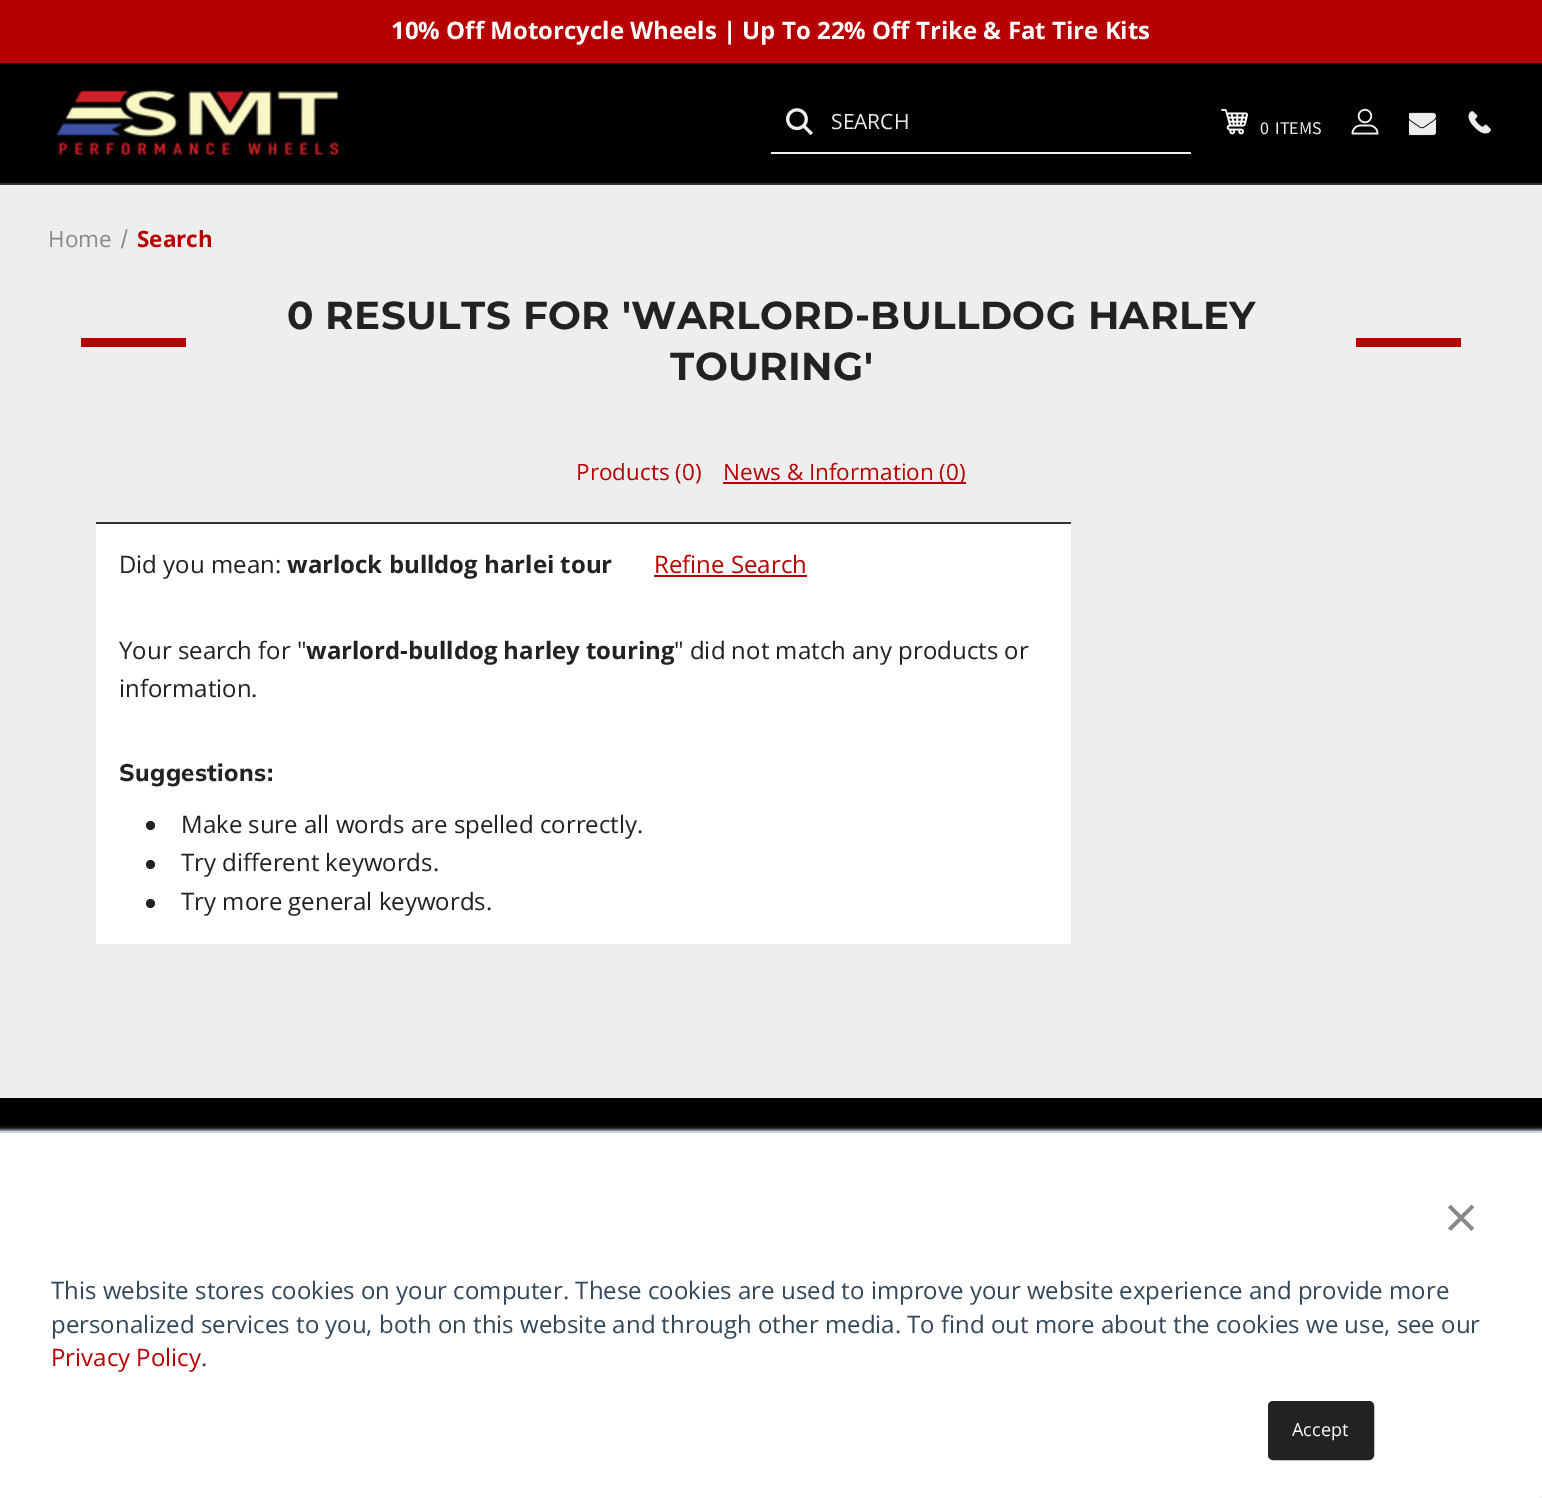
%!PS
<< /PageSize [1542 1498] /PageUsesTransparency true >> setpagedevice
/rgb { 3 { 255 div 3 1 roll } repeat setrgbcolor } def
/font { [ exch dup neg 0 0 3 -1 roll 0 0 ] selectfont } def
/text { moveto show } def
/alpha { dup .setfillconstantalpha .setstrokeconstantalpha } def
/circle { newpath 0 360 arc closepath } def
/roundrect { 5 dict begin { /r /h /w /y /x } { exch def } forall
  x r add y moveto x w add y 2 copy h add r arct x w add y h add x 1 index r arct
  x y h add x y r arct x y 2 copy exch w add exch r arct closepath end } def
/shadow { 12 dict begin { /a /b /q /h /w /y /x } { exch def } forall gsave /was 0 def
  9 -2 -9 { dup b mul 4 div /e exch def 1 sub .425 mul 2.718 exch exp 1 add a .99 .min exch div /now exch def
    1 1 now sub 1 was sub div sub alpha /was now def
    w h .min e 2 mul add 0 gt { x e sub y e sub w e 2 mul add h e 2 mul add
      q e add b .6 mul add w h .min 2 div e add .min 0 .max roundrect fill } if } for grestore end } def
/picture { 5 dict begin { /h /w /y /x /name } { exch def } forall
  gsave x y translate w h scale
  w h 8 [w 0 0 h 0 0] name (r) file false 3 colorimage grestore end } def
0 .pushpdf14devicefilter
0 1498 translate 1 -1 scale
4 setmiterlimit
238 238 238 rgb
0 0 1542 1498 rectfill
183 0 0 rgb
0 0 1542 63 rectfill
0 0 0 rgb
0 63 1542 120 rectfill
51 51 51 rgb
0 183 1542 2 rectfill
(img_01.rgb) 48 82 300 75 picture
238 238 238 rgb
771 152 420 2 rectfill
(img_02.rgb) 786 108 27 28 picture
(img_03.rgb) 1221 109 27 26 picture
(img_04.rgb) 1351 108 28 27 picture
(img_05.rgb) 1409 112 27 24 picture
(img_06.rgb) 1468 111 23 23 picture
136 136 136 rgb
126 229.5 moveto 1.5 0 rlineto -5 19 rlineto -1.5 -0.5 rlineto closepath fill
183 0 0 rgb
81 338 105 9 rectfill
1356 338 105 9 rectfill
723 482 243 2 rectfill
255 255 255 rgb
96 524 975 420 rectfill
51 51 51 rgb
96 522 975 2 rectfill
183 0 0 rgb
654 575 153 2 rectfill
34 34 34 rgb
150.5 825.5 4.5 circle fill
150.5 864.5 4.5 circle fill
150.5 903.5 4.5 circle fill
0 0 0 rgb
0 1098 1542 33 rectfill
234 240 246 rgb
0 1130 1542 367 0 2 1 shadow
255 255 255 rgb
0 1133 1542 365 rectfill
203 214 226 rgb
0 1131 1542 2 rectfill
34 34 34 rgb
1269 1402 104 57 4 roundrect gsave fill grestore
2 setlinewidth
stroke
245 245 245 rgb
1539 1496 3 2 rectfill
/OpenSans-Bold 24 font
255 255 255 rgb
(10% Off Motorcycle Wheels | Up To 22% Off Trike & Fat Tire Kits) 391 39 text
/OpenSans-Regular 21 font
238 238 238 rgb
(SEARCH) 831 129 text
/SourceSansPro-Regular 18 font
(0) 1260 134 text
(ITEMS) 1275 134 text
/OpenSans-Regular 22.5 font
136 136 136 rgb
(Home) 48 247 text
/OpenSans-Bold 22.5 font
183 0 0 rgb
(Search) 137 247 text
/Montserrat-Bold 39 font
34 34 34 rgb
287 329 moveto 0.4 0 (0 RESULTS FOR 'WARLORD-BULLDOG HARLEY) ashow
670 380 moveto 0.4 0 (TOURING') ashow
/OpenSans-Regular 22.5 font
183 0 0 rgb
(Products \(0\)) 576 480 text
(News & Information \(0\)) 723 480 text
/OpenSans-Regular 24 font
34 34 34 rgb
(Did you mean:) 119 573 text
/OpenSans-Bold 24 font
(warlock bulldog harlei tour) 287 573 text
/OpenSans-Regular 24 font
183 0 0 rgb
(Refine Search) 654 573 text
34 34 34 rgb
(Your search for ") 119 659 text
/OpenSans-Bold 24 font
(warlord-bulldog harley touring) 306 659 text
/OpenSans-Regular 24 font
(" did not match any products or) 674 659 text
(information.) 119 697 text
/Mulish-ExtraBold 24 font
119 781 moveto 0.4 0 (Suggestions:) ashow
/OpenSans-Regular 24 font
(Make sure all words are spelled correctly.) 181 833 text
(Try different keywords.) 181 871 text
(Try more general keywords.) 181 910 text
/OpenSans-Regular 60 font
136 136 136 rgb
(×) 1444 1239 text
/OpenSans-Regular 24 font
51 71 91 rgb
(This website stores cookies on your computer. These cookies are used to improve your website experience and provide more) 51 1299 text
(personalized services to you, both on this website and through other media. To find out more about the cookies we use, see our) 51 1333 text
183 0 0 rgb
(Privacy Policy) 51 1366 text
51 71 91 rgb
(.) 201 1366 text
/OpenSans-Regular 18 font
255 255 255 rgb
(Accept) 1292 1436 text
.poppdf14devicefilter showpage
